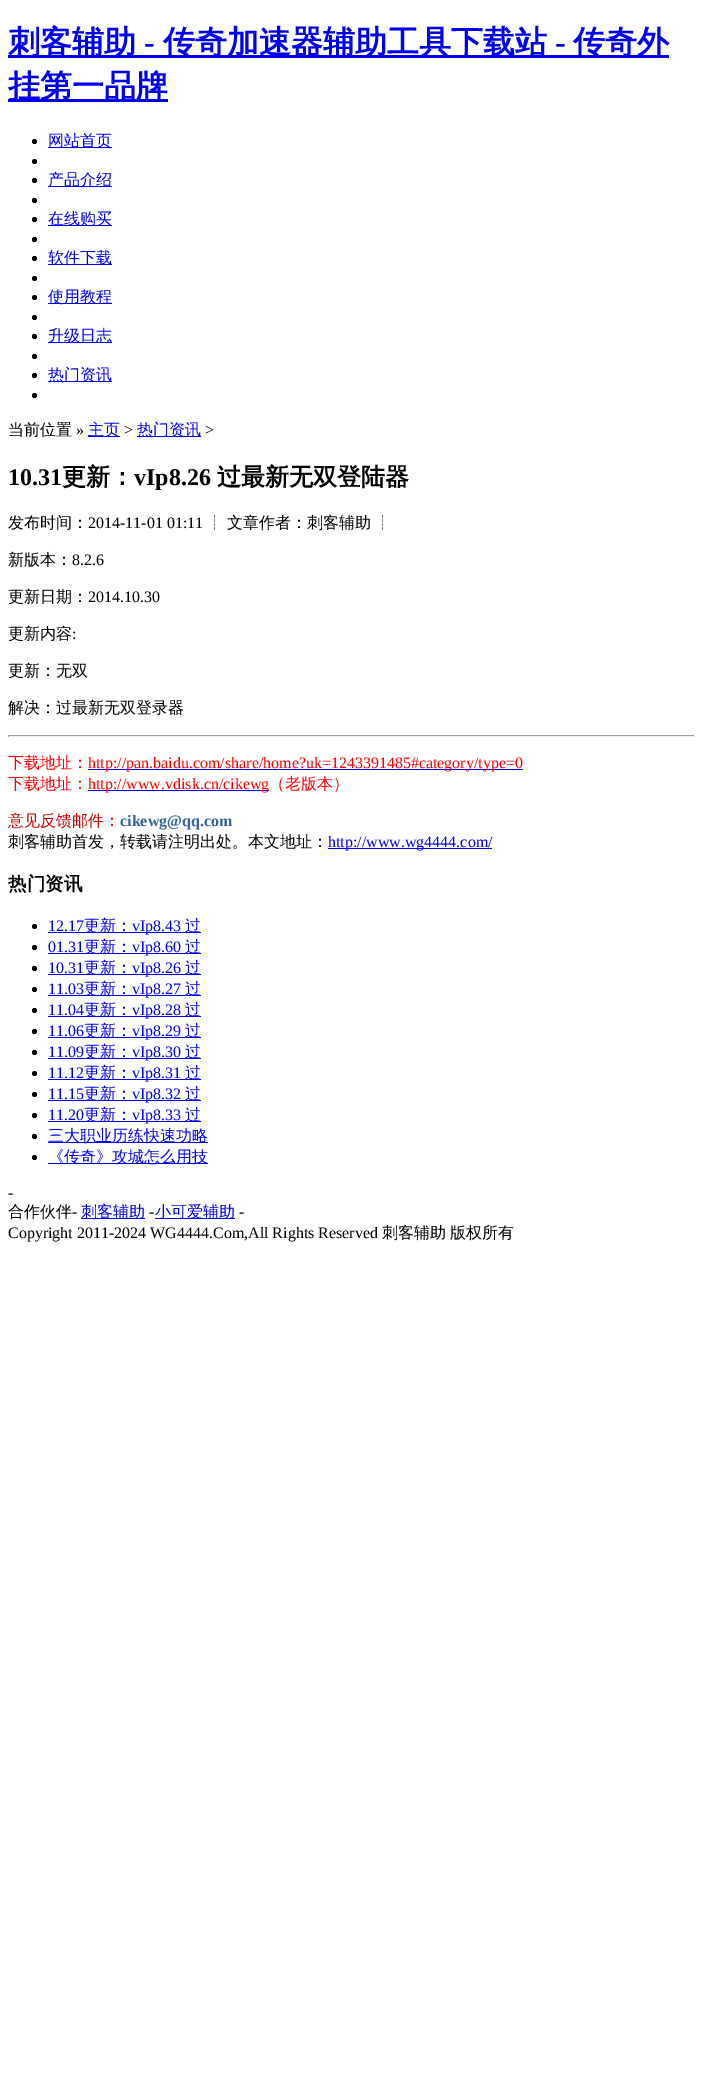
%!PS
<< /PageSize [703 2094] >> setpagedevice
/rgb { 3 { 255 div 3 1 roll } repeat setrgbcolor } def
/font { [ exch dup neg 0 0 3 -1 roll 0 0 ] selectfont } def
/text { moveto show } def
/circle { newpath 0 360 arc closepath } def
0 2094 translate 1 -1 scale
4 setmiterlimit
255 255 255 rgb
0 0 703 2094 rectfill
0 0 238 rgb
8 55 661 3 rectfill
8 99 160 3 rectfill
0 0 0 rgb
34.5 141.5 2.5 circle fill
0 0 238 rgb
48 147 64 1 rectfill
0 0 0 rgb
34.5 161.5 2.5 circle fill
34.5 180.5 2.5 circle fill
0 0 238 rgb
48 186 64 1 rectfill
0 0 0 rgb
34.5 200.5 2.5 circle fill
34.5 219.5 2.5 circle fill
0 0 238 rgb
48 225 64 1 rectfill
0 0 0 rgb
34.5 239.5 2.5 circle fill
34.5 258.5 2.5 circle fill
0 0 238 rgb
48 264 64 1 rectfill
0 0 0 rgb
34.5 278.5 2.5 circle fill
34.5 297.5 2.5 circle fill
0 0 238 rgb
48 303 64 1 rectfill
0 0 0 rgb
34.5 317.5 2.5 circle fill
34.5 336.5 2.5 circle fill
0 0 238 rgb
48 342 64 1 rectfill
0 0 0 rgb
34.5 356.5 2.5 circle fill
34.5 375.5 2.5 circle fill
0 0 238 rgb
48 381 64 1 rectfill
0 0 0 rgb
34.5 395.5 2.5 circle fill
0 0 238 rgb
88 436 32 1 rectfill
137 436 64 1 rectfill
159 159 159 rgb
8 735 687 1 rectfill
238 238 238 rgb
694 735 1 2 rectfill
8 736 687 1 rectfill
159 159 159 rgb
8 735 1 2 rectfill
0 0 238 rgb
88 769 435 1 rectfill
88 790 181 1 rectfill
328 848 164 1 rectfill
0 0 0 rgb
34.5 926.5 2.5 circle fill
0 0 238 rgb
48 932 153 1 rectfill
0 0 0 rgb
34.5 947.5 2.5 circle fill
0 0 238 rgb
48 953 153 1 rectfill
0 0 0 rgb
34.5 968.5 2.5 circle fill
0 0 238 rgb
48 974 153 1 rectfill
0 0 0 rgb
34.5 989.5 2.5 circle fill
0 0 238 rgb
48 995 153 1 rectfill
0 0 0 rgb
34.5 1010.5 2.5 circle fill
0 0 238 rgb
48 1016 153 1 rectfill
0 0 0 rgb
34.5 1031.5 2.5 circle fill
0 0 238 rgb
48 1037 153 1 rectfill
0 0 0 rgb
34.5 1052.5 2.5 circle fill
0 0 238 rgb
48 1058 153 1 rectfill
0 0 0 rgb
34.5 1073.5 2.5 circle fill
0 0 238 rgb
48 1079 153 1 rectfill
0 0 0 rgb
34.5 1094.5 2.5 circle fill
0 0 238 rgb
48 1100 153 1 rectfill
0 0 0 rgb
34.5 1115.5 2.5 circle fill
0 0 238 rgb
48 1121 153 1 rectfill
0 0 0 rgb
34.5 1136.5 2.5 circle fill
0 0 238 rgb
48 1142 160 1 rectfill
0 0 0 rgb
34.5 1157.5 2.5 circle fill
0 0 238 rgb
48 1163 160 1 rectfill
81 1218 64 1 rectfill
155 1218 80 1 rectfill
/WenQuanYiZenHei-Bold 32 font
(刺客辅助) 8 53 text
/LiberationSerif-Bold 32 font
(-) 144 53 text
/WenQuanYiZenHei-Bold 32 font
(传奇加速器辅助工具下载站) 163 53 text
/LiberationSerif-Bold 32 font
(-) 555 53 text
/WenQuanYiZenHei-Bold 32 font
(传奇外) 573 53 text
(挂第一品牌) 8 97 text
/WenQuanYiZenHei-Medium 16 font
(网站首页) 48 146 text
(产品介绍) 48 185 text
(在线购买) 48 224 text
(软件下载) 48 263 text
(使用教程) 48 302 text
(升级日志) 48 341 text
(热门资讯) 48 380 text
0 0 0 rgb
(当前位置) 8 435 text
/LiberationSerif-Regular 16 font
(») 76 435 text
/WenQuanYiZenHei-Medium 16 font
0 0 238 rgb
(主页) 88 435 text
/LiberationSerif-Regular 16 font
0 0 0 rgb
(>) 124 435 text
/WenQuanYiZenHei-Medium 16 font
0 0 238 rgb
(热门资讯) 137 435 text
/LiberationSerif-Regular 16 font
0 0 0 rgb
(>) 205 435 text
/LiberationSerif-Bold 24 font
(10.31) 8 485 text
/WenQuanYiZenHei-Bold 24 font
(更新：) 62 485 text
/LiberationSerif-Bold 24 font
(vIp8.26) 134 485 text
/WenQuanYiZenHei-Bold 24 font
(过最新无双登陆器) 217 485 text
/WenQuanYiZenHei-Medium 16 font
(发布时间：) 8 528 text
/LiberationSerif-Regular 16 font
(2014-11-01 01:11) 88 528 text
/WenQuanYiZenHei-Medium 16 font
(┊) 207 528 text
(文章作者：刺客辅助) 227 528 text
(┊) 375 528 text
(新版本：) 8 565 text
/LiberationSerif-Regular 16 font
(8.2.6) 72 565 text
/WenQuanYiZenHei-Medium 16 font
(更新日期：) 8 602 text
/LiberationSerif-Regular 16 font
(2014.10.30) 88 602 text
/WenQuanYiZenHei-Medium 16 font
(更新内容) 8 639 text
/LiberationSerif-Regular 16 font
(:) 72 639 text
/WenQuanYiZenHei-Medium 16 font
(更新：无双) 8 676 text
(解决：过最新无双登录器) 8 713 text
255 0 0 rgb
(下载地址：) 8 768 text
/LiberationSerif-Regular 16 font
(http://pan.baidu.com/share/home?uk=1243391485#category/type=0) 88 768 text
/WenQuanYiZenHei-Medium 16 font
(下载地址：) 8 789 text
/LiberationSerif-Regular 16 font
(http://www.vdisk.cn/cikewg) 88 789 text
/WenQuanYiZenHei-Medium 16 font
(（老版本）) 269 789 text
204 0 0 rgb
(意见反馈邮件：) 8 826 text
/LiberationSerif-Bold 16 font
51 102 153 rgb
(cikewg@qq.com) 120 826 text
/WenQuanYiZenHei-Medium 16 font
0 0 0 rgb
(刺客辅助首发，转载请注明出处。本文地址：) 8 847 text
/LiberationSerif-Regular 16 font
0 0 238 rgb
(http://www.wg4444.com/) 328 847 text
/WenQuanYiZenHei-Bold 18.5 font
0 0 0 rgb
(热门资讯) 8 890 text
/LiberationSerif-Regular 16 font
0 0 238 rgb
(12.17) 48 931 text
/WenQuanYiZenHei-Medium 16 font
(更新：) 84 931 text
/LiberationSerif-Regular 16 font
(vIp8.43) 132 931 text
/WenQuanYiZenHei-Medium 16 font
(过) 185 931 text
/LiberationSerif-Regular 16 font
(01.31) 48 952 text
/WenQuanYiZenHei-Medium 16 font
(更新：) 84 952 text
/LiberationSerif-Regular 16 font
(vIp8.60) 132 952 text
/WenQuanYiZenHei-Medium 16 font
(过) 185 952 text
/LiberationSerif-Regular 16 font
(10.31) 48 973 text
/WenQuanYiZenHei-Medium 16 font
(更新：) 84 973 text
/LiberationSerif-Regular 16 font
(vIp8.26) 132 973 text
/WenQuanYiZenHei-Medium 16 font
(过) 185 973 text
/LiberationSerif-Regular 16 font
(11.03) 48 994 text
/WenQuanYiZenHei-Medium 16 font
(更新：) 84 994 text
/LiberationSerif-Regular 16 font
(vIp8.27) 132 994 text
/WenQuanYiZenHei-Medium 16 font
(过) 185 994 text
/LiberationSerif-Regular 16 font
(11.04) 48 1015 text
/WenQuanYiZenHei-Medium 16 font
(更新：) 84 1015 text
/LiberationSerif-Regular 16 font
(vIp8.28) 132 1015 text
/WenQuanYiZenHei-Medium 16 font
(过) 185 1015 text
/LiberationSerif-Regular 16 font
(11.06) 48 1036 text
/WenQuanYiZenHei-Medium 16 font
(更新：) 84 1036 text
/LiberationSerif-Regular 16 font
(vIp8.29) 132 1036 text
/WenQuanYiZenHei-Medium 16 font
(过) 185 1036 text
/LiberationSerif-Regular 16 font
(11.09) 48 1057 text
/WenQuanYiZenHei-Medium 16 font
(更新：) 84 1057 text
/LiberationSerif-Regular 16 font
(vIp8.30) 132 1057 text
/WenQuanYiZenHei-Medium 16 font
(过) 185 1057 text
/LiberationSerif-Regular 16 font
(11.12) 48 1078 text
/WenQuanYiZenHei-Medium 16 font
(更新：) 84 1078 text
/LiberationSerif-Regular 16 font
(vIp8.31) 132 1078 text
/WenQuanYiZenHei-Medium 16 font
(过) 185 1078 text
/LiberationSerif-Regular 16 font
(11.15) 48 1099 text
/WenQuanYiZenHei-Medium 16 font
(更新：) 84 1099 text
/LiberationSerif-Regular 16 font
(vIp8.32) 132 1099 text
/WenQuanYiZenHei-Medium 16 font
(过) 185 1099 text
/LiberationSerif-Regular 16 font
(11.20) 48 1120 text
/WenQuanYiZenHei-Medium 16 font
(更新：) 84 1120 text
/LiberationSerif-Regular 16 font
(vIp8.33) 132 1120 text
/WenQuanYiZenHei-Medium 16 font
(过) 185 1120 text
(三大职业历练快速功略) 48 1141 text
(《传奇》攻城怎么用技) 48 1162 text
/LiberationSerif-Regular 16 font
0 0 0 rgb
(-) 8 1198 text
/WenQuanYiZenHei-Medium 16 font
(合作伙伴) 8 1217 text
/LiberationSerif-Regular 16 font
(-) 72 1217 text
/WenQuanYiZenHei-Medium 16 font
0 0 238 rgb
(刺客辅助) 81 1217 text
/LiberationSerif-Regular 16 font
0 0 0 rgb
(-) 149 1217 text
/WenQuanYiZenHei-Medium 16 font
0 0 238 rgb
(小可爱辅助) 155 1217 text
/LiberationSerif-Regular 16 font
0 0 0 rgb
(-) 239 1217 text
(Copyright 2011-2024 WG4444.Com,All Rights Reserved) 8 1238 text
/WenQuanYiZenHei-Medium 16 font
(刺客辅助) 382 1238 text
(版权所有) 450 1238 text
showpage
